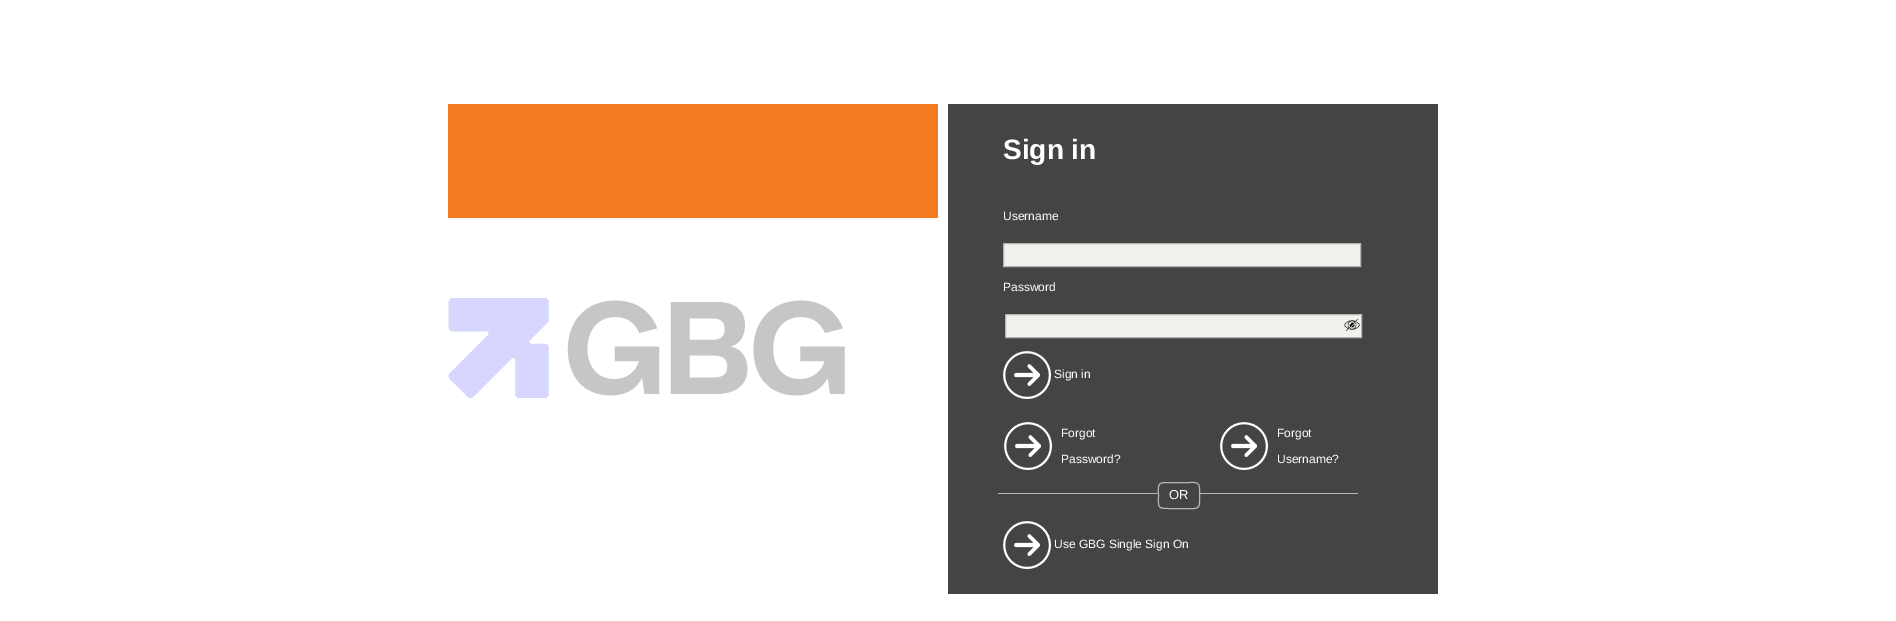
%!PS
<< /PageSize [1896 621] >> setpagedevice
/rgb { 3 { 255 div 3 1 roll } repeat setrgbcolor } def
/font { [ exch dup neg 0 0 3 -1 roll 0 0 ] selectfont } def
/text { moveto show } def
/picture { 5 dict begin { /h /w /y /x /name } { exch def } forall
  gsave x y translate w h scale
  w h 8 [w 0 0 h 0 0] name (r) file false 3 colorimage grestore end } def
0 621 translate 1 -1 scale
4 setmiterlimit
255 255 255 rgb
0 0 1896 621 rectfill
244 123 32 rgb
448 104 490 114 rectfill
(img_01.rgb) 448 298 397 100 picture
68 68 68 rgb
948 104 490 490 rectfill
243 241 237 rgb
1003.5 243.5 moveto 357 0 rlineto 0 23 rlineto -357 0 rlineto closepath gsave fill grestore
182 180 177 rgb
stroke
243 241 237 rgb
1005.5 314.5 moveto 356 0 rlineto 0 23 rlineto -356 0 rlineto closepath gsave fill grestore
182 180 177 rgb
stroke
(img_02.rgb) 1344 319 16 13 picture
(img_03.rgb) 1003 351 48 48 picture
(img_03.rgb) 1004 422 48 48 picture
(img_03.rgb) 1220 422 48 48 picture
182 182 182 rgb
998 493 360 1 rectfill
68 68 68 rgb
1164 482 moveto 25 0 rlineto 7 0 11 -1 11 7 rcurveto 0 13 rlineto 0 5 -1 7 -6 7 rcurveto -25 0 rlineto -14 0 -11 -3 -11 -17 rcurveto 0 -5 -1 -10 6 -10 rcurveto closepath fill
182 182 182 rgb
1164.5 482.5 moveto 24.5 0 rlineto 7 0 10.5 -1 10.5 6.5 rcurveto 0 9.5 rlineto 0 5.5 1 10 -6 10 rcurveto -24.5 0 rlineto -12 0 -10.5 -1 -10.5 -13 rcurveto 0 -6 -2.5 -13 6 -13 rcurveto closepath stroke
(img_03.rgb) 1003 521 48 48 picture
/LiberationSans-Bold 28 font
255 255 255 rgb
(Sign in) 1003 159 text
/LiberationSans-Regular 12 font
(Username) 1003 220 text
(Password) 1003 291 text
(Sign in) 1054 378 text
(Forgot) 1061 437 text
(Forgot) 1277 437 text
(Password?) 1061 463 text
(Username?) 1277 463 text
/LiberationSans-Regular 13 font
(OR) 1169 499 text
/LiberationSans-Regular 12 font
(Use GBG Single Sign On) 1054 548 text
showpage
